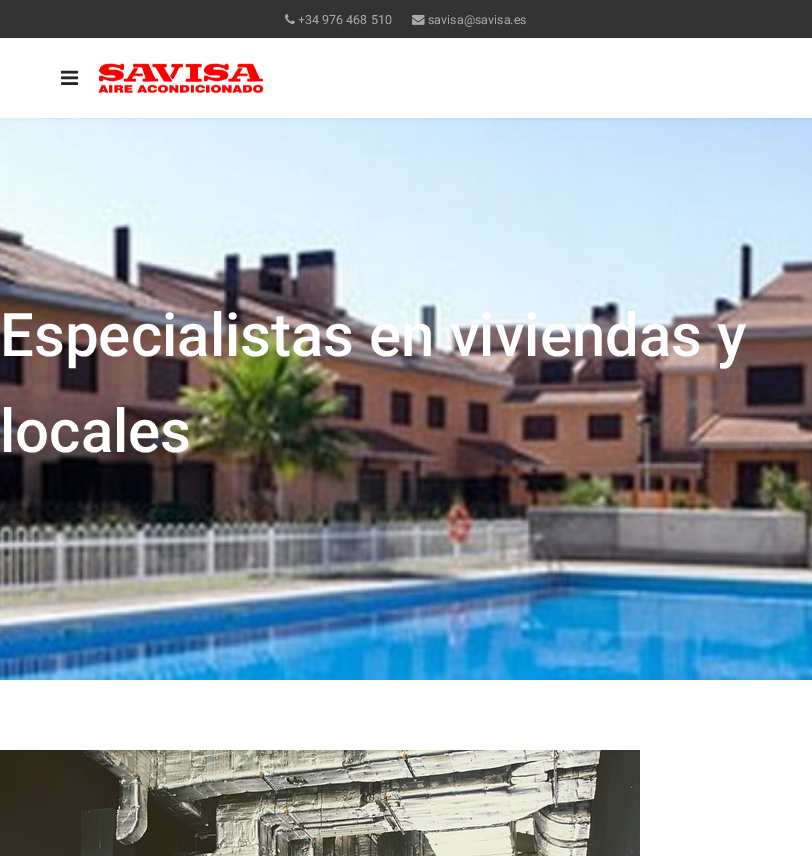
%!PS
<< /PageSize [812 856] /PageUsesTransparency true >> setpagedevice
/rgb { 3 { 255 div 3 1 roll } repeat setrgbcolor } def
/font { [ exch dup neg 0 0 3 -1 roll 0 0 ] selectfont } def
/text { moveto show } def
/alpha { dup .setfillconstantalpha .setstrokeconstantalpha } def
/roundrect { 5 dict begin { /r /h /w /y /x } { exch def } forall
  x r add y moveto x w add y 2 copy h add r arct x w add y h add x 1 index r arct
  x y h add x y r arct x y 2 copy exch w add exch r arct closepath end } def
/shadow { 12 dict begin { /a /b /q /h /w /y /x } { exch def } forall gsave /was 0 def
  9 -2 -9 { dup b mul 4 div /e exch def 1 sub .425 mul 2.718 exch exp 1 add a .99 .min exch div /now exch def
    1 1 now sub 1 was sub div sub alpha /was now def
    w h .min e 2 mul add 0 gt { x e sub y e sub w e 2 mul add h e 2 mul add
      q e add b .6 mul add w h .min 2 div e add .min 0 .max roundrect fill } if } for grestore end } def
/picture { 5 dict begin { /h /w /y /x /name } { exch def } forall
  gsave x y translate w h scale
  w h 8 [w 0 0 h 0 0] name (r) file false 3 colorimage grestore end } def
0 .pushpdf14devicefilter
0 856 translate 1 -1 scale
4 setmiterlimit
255 255 255 rgb
0 0 812 856 rectfill
51 51 51 rgb
0 0 812 38 rectfill
(img_01.rgb) 285 14 10 10 picture
(img_02.rgb) 412 15 13 10 picture
(img_05.rgb) 0 118 812 562 picture
gsave
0 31 moveto 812 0 rlineto 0 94 rlineto -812 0 rlineto closepath 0 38 moveto 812 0 rlineto 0 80 rlineto -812 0 rlineto closepath eoclip newpath
0 0 0 rgb
0 38 812 80 0 2 0.1 shadow
grestore
(img_03.rgb) 61 70 18 15 picture
(img_04.rgb) 98 63 166 31 picture
(img_06.rgb) 0 750 640 106 picture
/Roboto-Regular 12.5 font
170 170 170 rgb
(+34 976 468 510) 298 24 text
(savisa@savisa.es) 428 24 text
/Roboto-Medium 60 font
255 255 255 rgb
(Especialistas en viviendas y) 0 356 text
(locales) 0 452 text
.poppdf14devicefilter showpage
